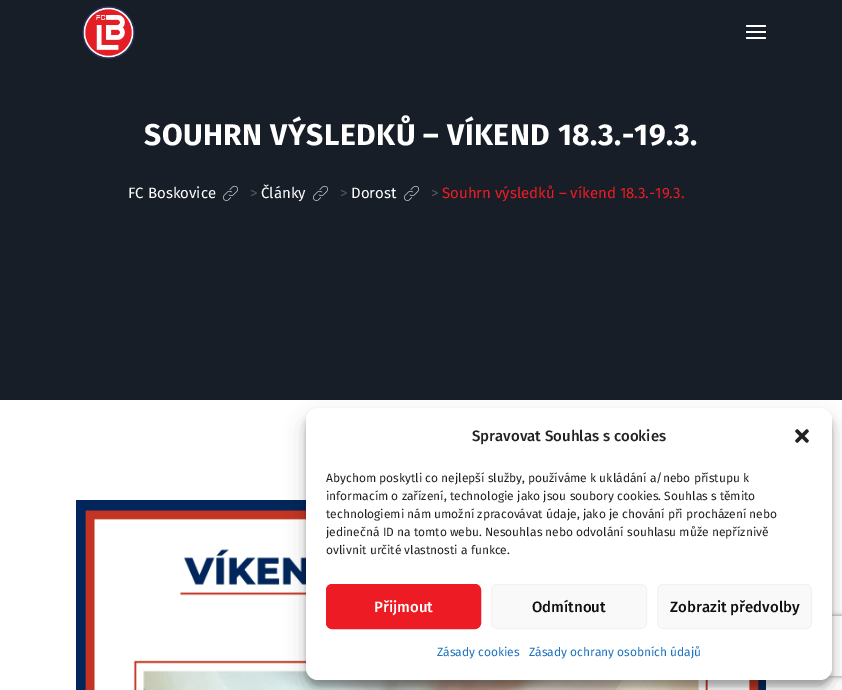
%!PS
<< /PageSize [842 690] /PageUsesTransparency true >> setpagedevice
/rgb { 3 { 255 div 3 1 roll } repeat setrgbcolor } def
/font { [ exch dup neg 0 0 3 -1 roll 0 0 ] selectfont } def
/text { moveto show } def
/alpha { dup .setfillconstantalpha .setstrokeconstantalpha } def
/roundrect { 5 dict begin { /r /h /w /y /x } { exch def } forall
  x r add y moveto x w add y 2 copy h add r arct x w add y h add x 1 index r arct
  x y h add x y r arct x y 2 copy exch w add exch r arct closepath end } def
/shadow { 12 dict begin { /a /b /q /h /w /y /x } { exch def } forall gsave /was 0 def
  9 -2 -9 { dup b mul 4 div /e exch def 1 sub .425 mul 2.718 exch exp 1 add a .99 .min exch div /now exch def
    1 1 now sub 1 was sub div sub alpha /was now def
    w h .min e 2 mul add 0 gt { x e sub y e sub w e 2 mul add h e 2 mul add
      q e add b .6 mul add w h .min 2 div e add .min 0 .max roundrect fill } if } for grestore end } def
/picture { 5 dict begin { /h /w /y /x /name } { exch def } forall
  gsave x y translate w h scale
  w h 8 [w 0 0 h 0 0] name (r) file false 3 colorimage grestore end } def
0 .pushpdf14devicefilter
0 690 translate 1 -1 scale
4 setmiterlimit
255 255 255 rgb
0 0 842 690 rectfill
23 30 40 rgb
0 0 842 400 rectfill
(img_01.rgb) 82 6 53 53 picture
255 255 255 rgb
746 25 20 2 1 roundrect fill
746 31 20 2 1 roundrect fill
746 37 20 2 1 roundrect fill
(img_02.rgb) 223 185 15 16 picture
(img_02.rgb) 313 185 15 16 picture
(img_02.rgb) 404 185 15 16 picture
(img_03.rgb) 76 500 690 190 picture
0 0 0 rgb
306 414 526 272 12 3 0.23 shadow
306 418 526 272 12 10 0.19 shadow
gsave
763 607 moveto 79 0 rlineto 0 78 rlineto -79 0 rlineto closepath 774 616 moveto 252 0 rlineto 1 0 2 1 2 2 rcurveto 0 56 rlineto 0 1 -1 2 -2 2 rcurveto -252 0 rlineto -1 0 -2 -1 -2 -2 rcurveto 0 -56 rlineto 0 -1 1 -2 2 -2 rcurveto closepath eoclip newpath
128 128 128 rgb
772 616 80 60 2 2.5 1 shadow
grestore
255 255 255 rgb
306 408 526 272 12 roundrect fill
(img_04.rgb) 795 429 14 14 picture
237 28 36 rgb
326.5 584.5 154 44 5.5 roundrect gsave fill grestore
stroke
249 249 249 rgb
491.5 584.5 155 44 5.5 roundrect gsave fill grestore
242 242 242 rgb
stroke
249 249 249 rgb
657.5 584.5 154 44 5.5 roundrect gsave fill grestore
242 242 242 rgb
stroke
/FiraSans-Bold 30 font
255 255 255 rgb
144 145 moveto 0.5 0 (SOUHRN VÝSLEDKŮ – VÍKEND 18.3.-19.3.) ashow
/FiraSans-Regular 15 font
(FC Boskovice) 128 198 text
85 85 85 rgb
(>) 250 198 text
255 255 255 rgb
(Články) 261 198 text
85 85 85 rgb
(>) 340 198 text
255 255 255 rgb
(Dorost) 351 198 text
85 85 85 rgb
(>) 431 198 text
237 28 36 rgb
(Souhrn výsledků – víkend 18.3.-19.3.) 442 198 text
/FiraSans-Medium 15 font
34 34 34 rgb
(Spravovat Souhlas s cookies) 472 441 text
/FiraSans-Regular 12 font
(Abychom poskytli co nejlepší služby, používáme k ukládání a/nebo přístupu k) 326 482 text
(informacím o zařízení, technologie jako jsou soubory cookies. Souhlas s těmito) 326 500 text
(technologiemi nám umožní zpracovávat údaje, jako je chování při procházení nebo) 326 518 text
(jedinečná ID na tomto webu. Nesouhlas nebo odvolání souhlasu může nepříznivě) 326 536 text
(ovlivnit určité vlastnosti a funkce.) 326 554 text
/FiraSans-Medium 15 font
255 255 255 rgb
(Přijmout) 374 612 text
16 16 16 rgb
(Odmítnout) 532 612 text
(Zobrazit předvolby) 670 612 text
/FiraSans-Regular 12 font
30 115 190 rgb
(Zásady cookies) 437 656 text
(Zásady ochrany osobních údajů) 529 656 text
.poppdf14devicefilter showpage
